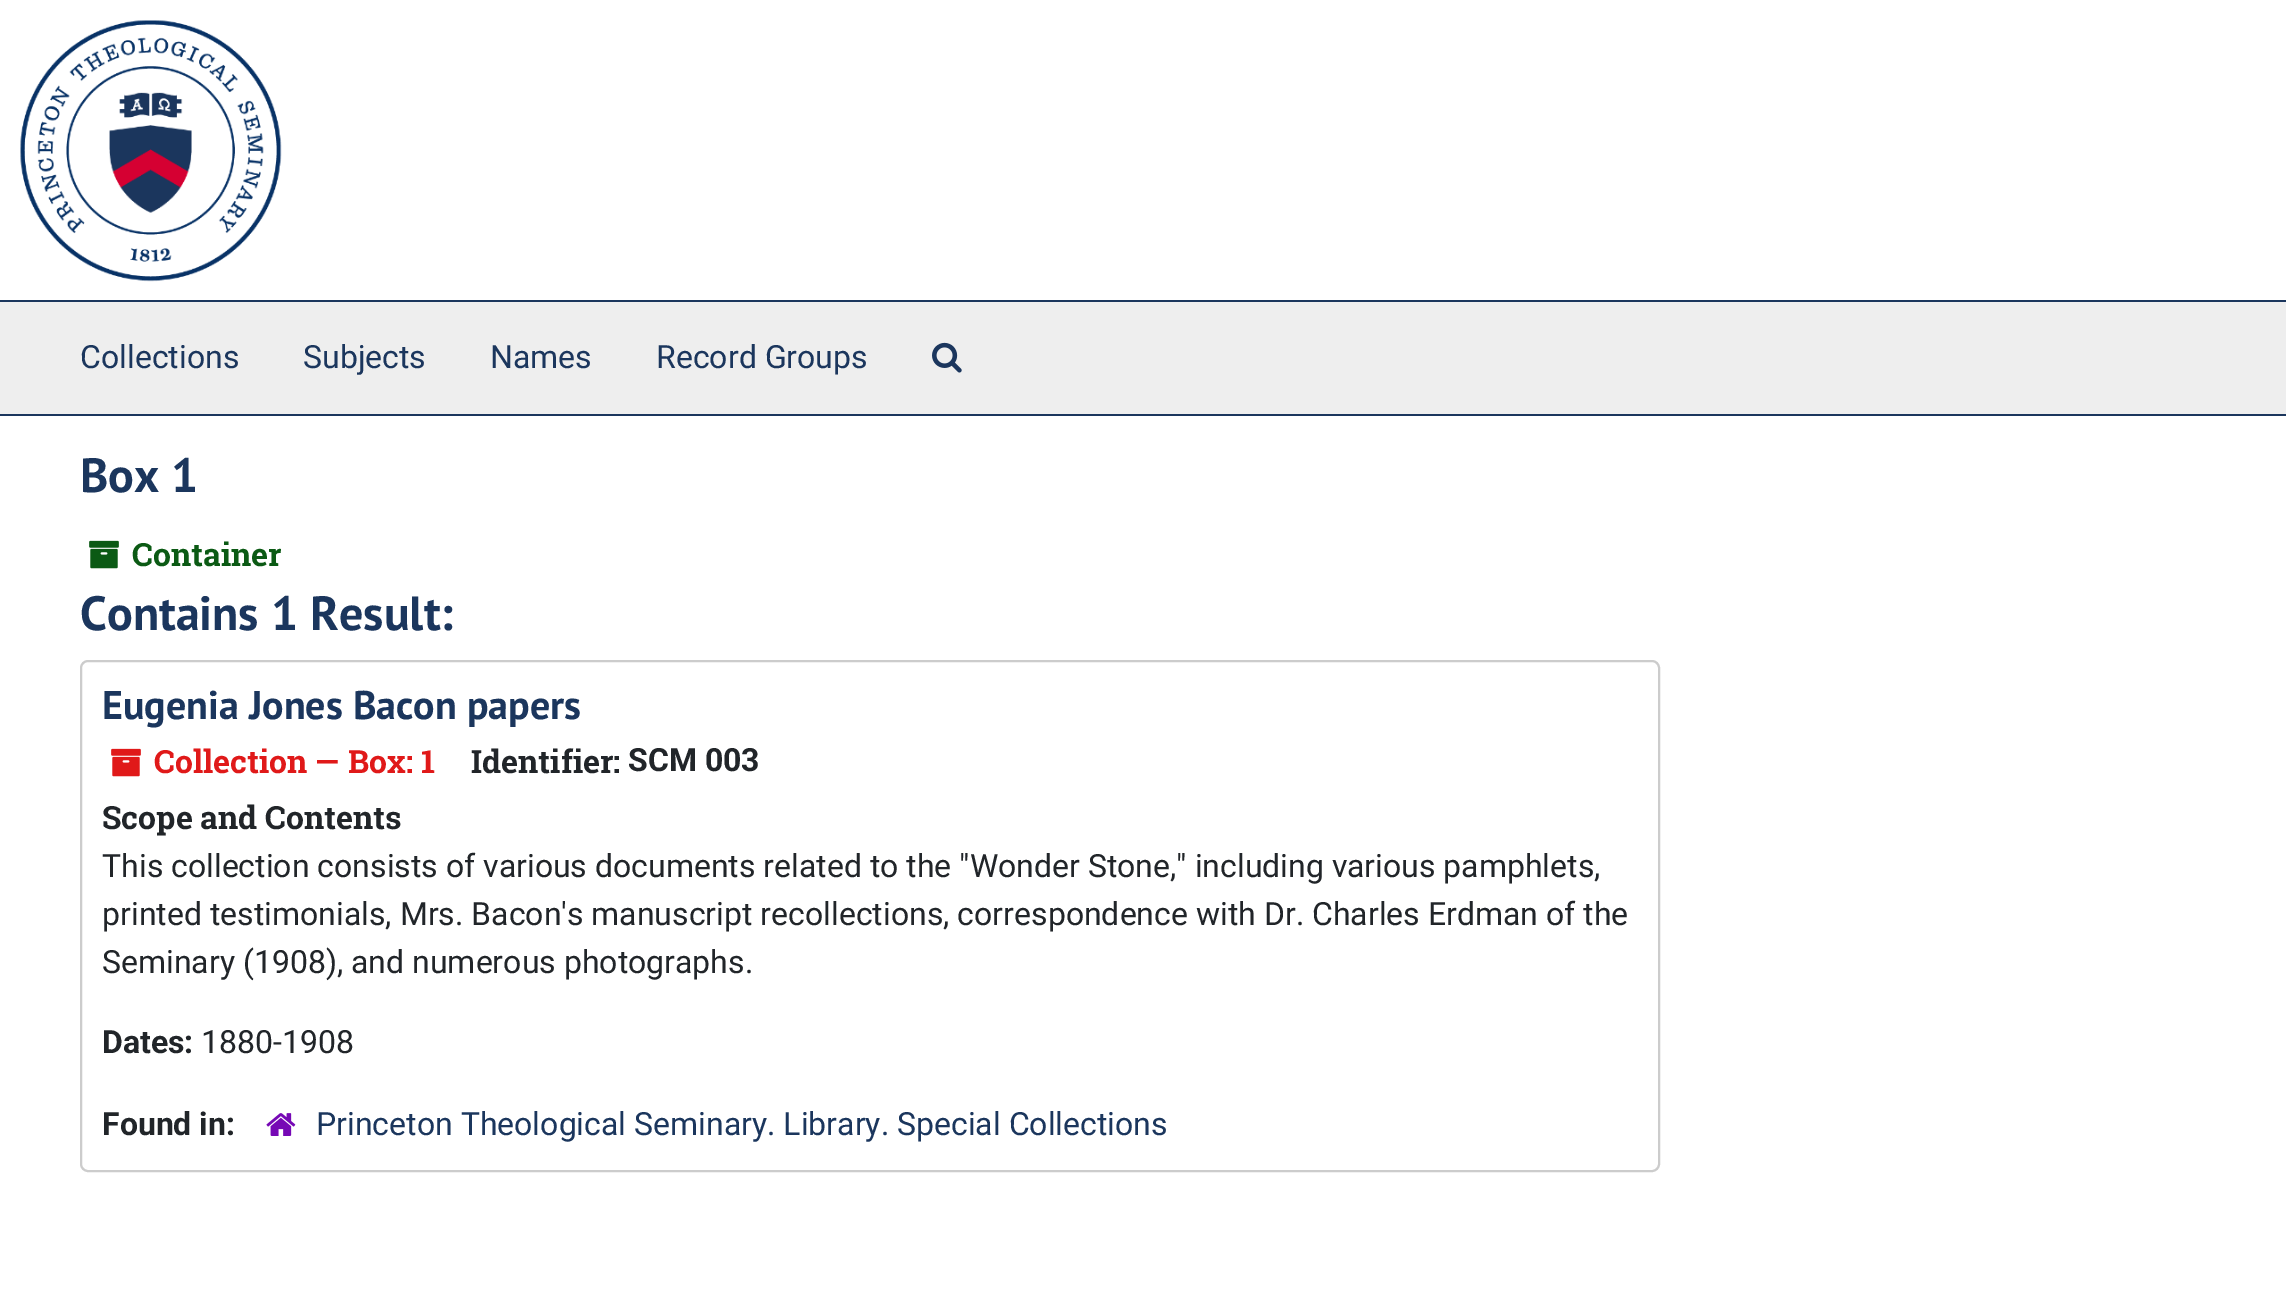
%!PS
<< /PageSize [2286 1296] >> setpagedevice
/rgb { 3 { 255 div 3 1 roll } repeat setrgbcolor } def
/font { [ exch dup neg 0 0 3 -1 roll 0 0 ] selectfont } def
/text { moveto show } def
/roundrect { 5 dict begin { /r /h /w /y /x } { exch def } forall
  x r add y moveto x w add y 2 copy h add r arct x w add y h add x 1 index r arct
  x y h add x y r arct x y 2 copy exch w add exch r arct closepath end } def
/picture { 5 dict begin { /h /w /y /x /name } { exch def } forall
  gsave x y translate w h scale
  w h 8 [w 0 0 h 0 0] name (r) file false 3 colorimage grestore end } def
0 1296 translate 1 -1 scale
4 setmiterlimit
255 255 255 rgb
0 0 2286 1296 rectfill
(img_01.rgb) 20 20 262 262 picture
238 238 238 rgb
0 302 2286 112 rectfill
27 54 93 rgb
0 300 2286 2 rectfill
0 414 2286 2 rectfill
(img_02.rgb) 932 342 30 31 picture
(img_03.rgb) 89 540 30 29 picture
204 204 204 rgb
2 setlinewidth
81 661 1578 510 7 roundrect stroke
(img_04.rgb) 111 748 30 29 picture
(img_05.rgb) 266 1113 30 23 picture
/Roboto-Regular 32 font
27 54 93 rgb
(Collections) 80 368 text
(Subjects) 303 368 text
(Names) 490 368 text
(Record Groups) 656 368 text
/PTSans-Bold 48 font
(Box 1) 80 492 text
/RobotoSlab-Bold 32 font
11 90 20 rgb
(Container) 132 566 text
/PTSans-Bold 48 font
27 54 93 rgb
(Contains 1 Result:) 80 630 text
/PTSans-Bold 40 font
(Eugenia Jones Bacon papers) 102 719 text
/RobotoSlab-Bold 32 font
224 25 25 rgb
(Collection — Box: 1) 154 773 text
33 37 41 rgb
(Identifier:) 471 773 text
/Roboto-Bold 32 font
(SCM 003) 628 771 text
/RobotoSlab-Bold 32 font
(Scope and Contents) 102 829 text
/Roboto-Regular 32 font
(This collection consists of various documents related to the "Wonder Stone," including various pamphlets,) 102 877 text
(printed testimonials, Mrs. Bacon's manuscript recollections, correspondence with Dr. Charles Erdman of the) 102 925 text
(Seminary \(1908\), and numerous photographs.) 102 973 text
/Roboto-Bold 32 font
(Dates:) 102 1053 text
/Roboto-Regular 32 font
(1880-1908) 201 1053 text
/Roboto-Bold 32 font
(Found in:) 102 1135 text
/Roboto-Regular 32 font
27 54 93 rgb
(Princeton Theological Seminary. Library. Special Collections) 316 1135 text
showpage
